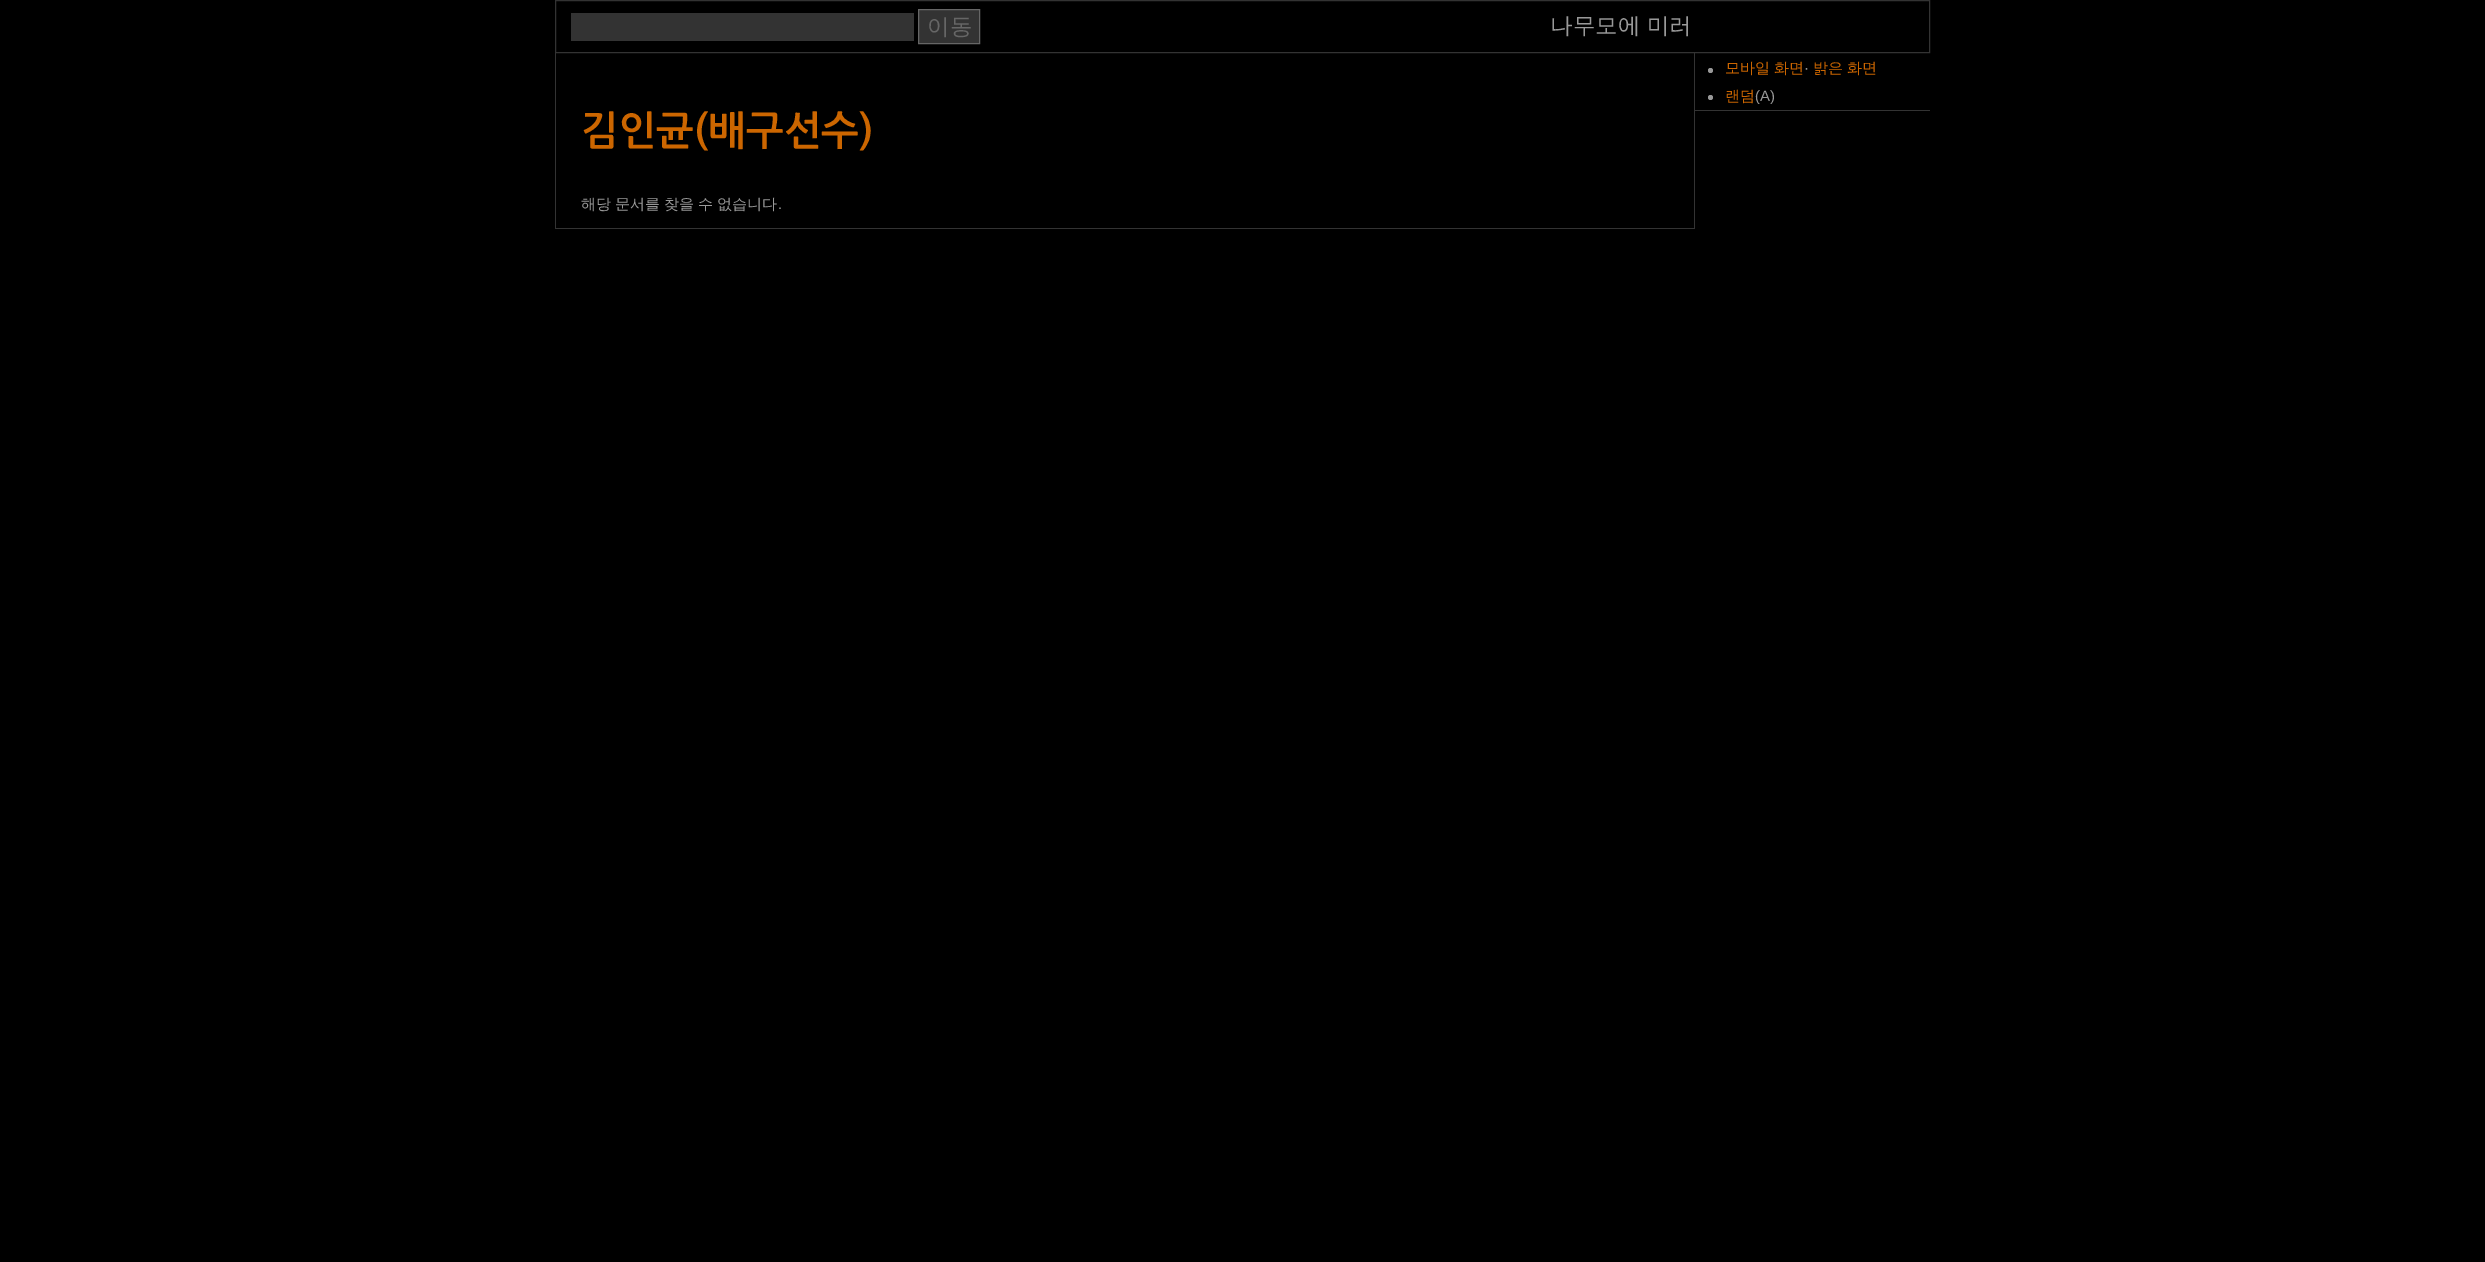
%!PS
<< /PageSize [2485 1262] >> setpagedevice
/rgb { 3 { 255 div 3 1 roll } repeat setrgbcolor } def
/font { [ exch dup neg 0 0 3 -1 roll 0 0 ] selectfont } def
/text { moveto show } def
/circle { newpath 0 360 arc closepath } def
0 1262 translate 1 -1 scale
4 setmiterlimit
0 0 0 rgb
0 0 2485 1262 rectfill
51 51 51 rgb
555.5 0.5 1374 52 rectstroke
571 13 343 28 rectfill
918.5 9.5 moveto 61 0 rlineto 0 34 rlineto -61 0 rlineto closepath gsave fill grestore
102 102 102 rgb
stroke
51 51 51 rgb
1695 110 235 1 rectfill
153 153 153 rgb
1710.5 70.5 2.5 circle fill
1710.5 97.5 2.5 circle fill
51 51 51 rgb
1694 53 1 176 rectfill
555 228 1140 1 rectfill
555 53 1 176 rectfill
/WenQuanYiZenHei-Medium 22.5 font
102 102 102 rgb
(이동) 927 34 text
153 153 153 rgb
(나무모에 미러) 1550 33 text
/WenQuanYiZenHei-Medium 15 font
204 102 0 rgb
1725 73 moveto -0.5 0 32 (모바일 화면) widthshow
/LiberationSans-Regular 15 font
153 153 153 rgb
(·) 1804 73 text
/WenQuanYiZenHei-Medium 15 font
204 102 0 rgb
1813 73 moveto -0.5 0 32 (밝은 화면) widthshow
(랜덤) 1725 101 text
/LiberationSans-Regular 15 font
153 153 153 rgb
(\(A\)) 1755 101 text
/NanumGothic-Bold 40 font
204 102 0 rgb
(김인균\(배구선수\)) 581 143 text
/WenQuanYiZenHei-Medium 15 font
153 153 153 rgb
581 209 moveto -0.5 0 32 (해당 문서를 찾을 수 없습니다) widthshow
/LiberationSans-Regular 15 font
(.) 778 209 text
showpage
